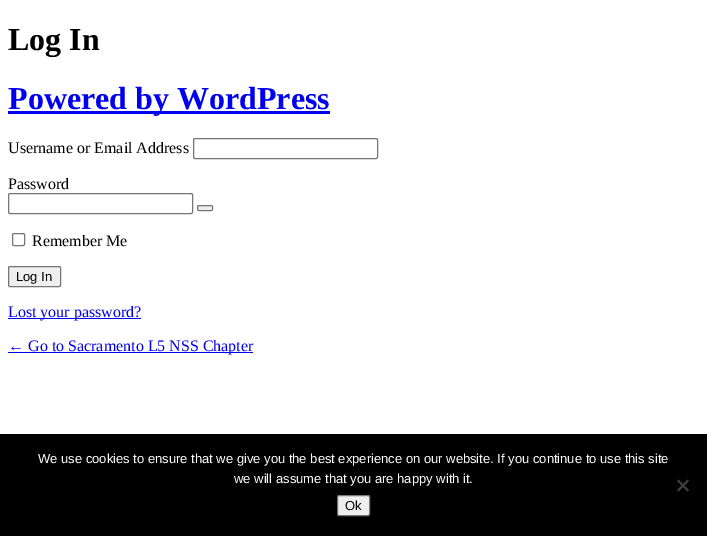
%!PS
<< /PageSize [707 536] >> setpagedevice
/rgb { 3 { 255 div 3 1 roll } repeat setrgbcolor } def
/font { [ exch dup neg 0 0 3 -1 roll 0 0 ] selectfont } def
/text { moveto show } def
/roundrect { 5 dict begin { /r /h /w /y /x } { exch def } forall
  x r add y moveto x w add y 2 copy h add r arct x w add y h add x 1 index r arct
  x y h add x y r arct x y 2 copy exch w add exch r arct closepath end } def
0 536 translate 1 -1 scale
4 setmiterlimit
255 255 255 rgb
0 0 707 536 rectfill
0 0 238 rgb
8 111 322 3 rectfill
118 118 118 rgb
193.5 138.5 184 20 1.5 roundrect stroke
8.5 193.5 184 20 1.5 roundrect stroke
239 239 239 rgb
197.5 205.5 15 5 1.5 roundrect gsave fill grestore
118 118 118 rgb
stroke
12.5 233.5 12 12 1.5 roundrect stroke
239 239 239 rgb
8.5 266.5 52 20 1.5 roundrect gsave fill grestore
118 118 118 rgb
stroke
0 0 238 rgb
8 318 133 1 rectfill
8 352 245 1 rectfill
0 0 0 rgb
0 434 707 102 rectfill
64 64 64 rgb
687.5 479.5 moveto 1.5 1.5 rlineto -10.5 10.5 rlineto -1.5 -1.5 rlineto closepath fill
677 481 moveto 1.5 -1.5 rlineto 10.5 10.5 rlineto -1.5 1.5 rlineto closepath fill
239 239 239 rgb
337.5 495.5 32 20 1.5 roundrect gsave fill grestore
118 118 118 rgb
stroke
/LiberationSerif-Bold 32 font
0 0 0 rgb
(Log In) 8 50 text
0 0 238 rgb
(Powered by WordPress) 8 109 text
/LiberationSerif-Regular 16 font
0 0 0 rgb
(Username or Email Address) 8 153 text
(Password) 8 189 text
(Remember Me) 32 246 text
/LiberationSans-Regular 13 font
(Log In) 16 281 text
/LiberationSerif-Regular 16 font
0 0 238 rgb
(Lost your password?) 8 317 text
(← Go to Sacramento L5 NSS Chapter) 8 351 text
/LiberationSans-Regular 13 font
255 255 255 rgb
(We use cookies to ensure that we give you the best experience on our website. If you continue to use this site) 38 463 text
(we will assume that you are happy with it.) 234 483 text
0 0 0 rgb
(Ok) 345 510 text
showpage
